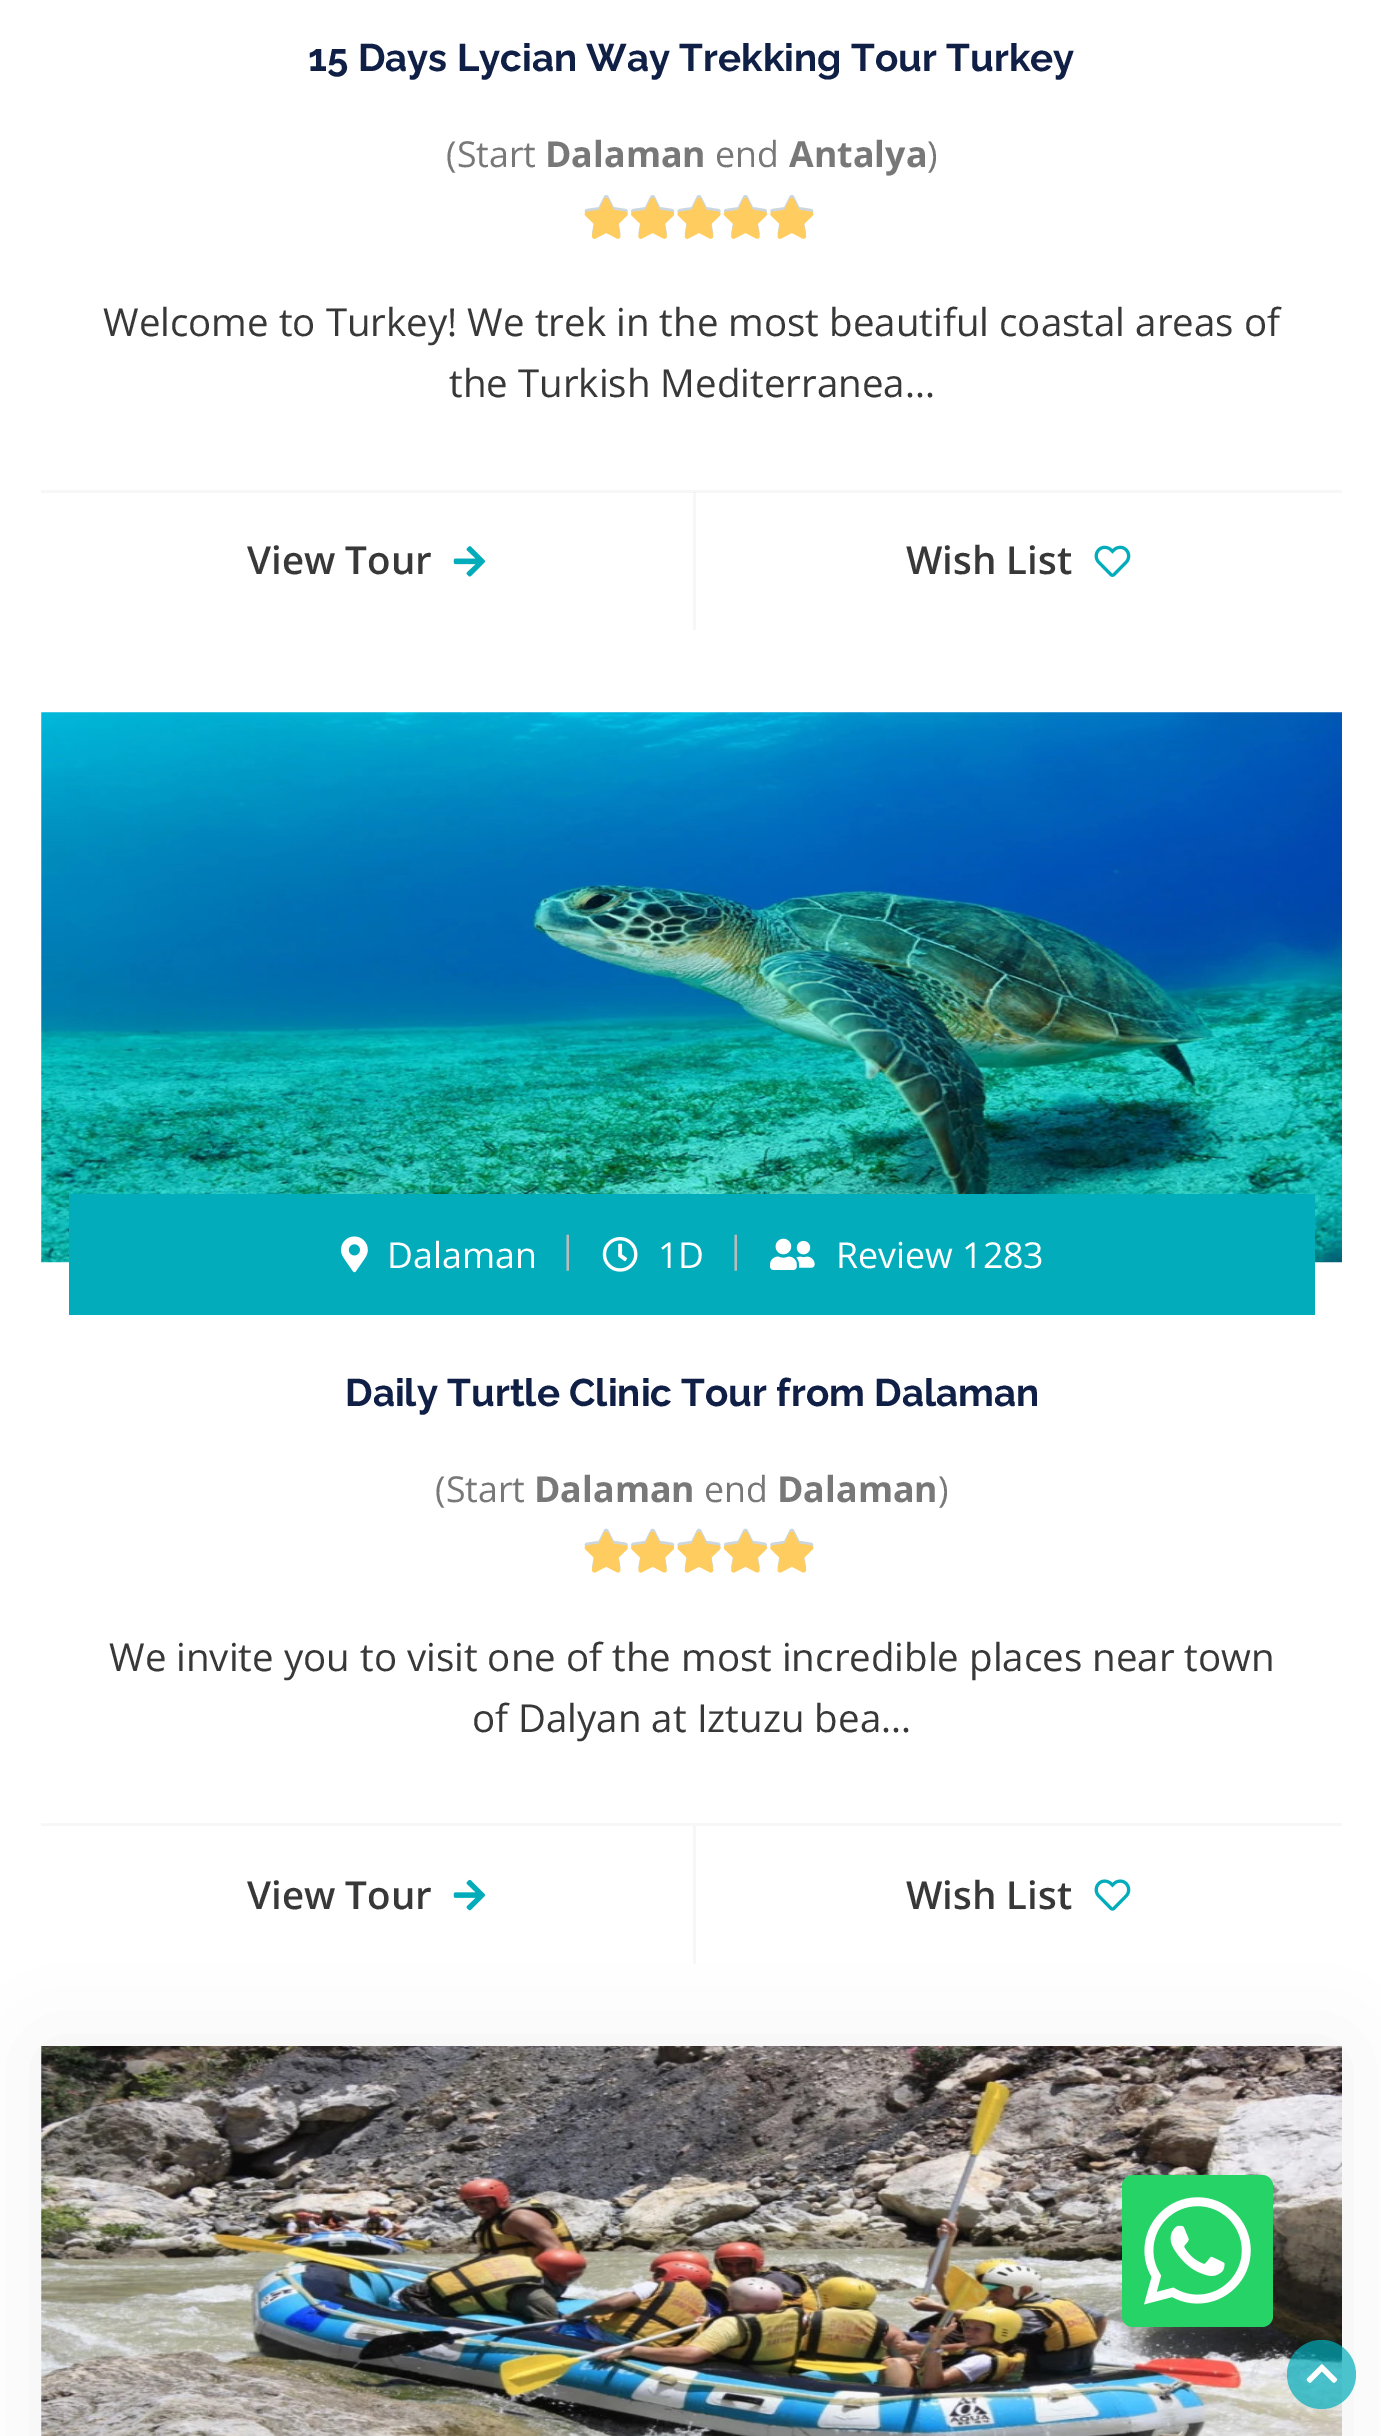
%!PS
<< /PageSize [1381 2436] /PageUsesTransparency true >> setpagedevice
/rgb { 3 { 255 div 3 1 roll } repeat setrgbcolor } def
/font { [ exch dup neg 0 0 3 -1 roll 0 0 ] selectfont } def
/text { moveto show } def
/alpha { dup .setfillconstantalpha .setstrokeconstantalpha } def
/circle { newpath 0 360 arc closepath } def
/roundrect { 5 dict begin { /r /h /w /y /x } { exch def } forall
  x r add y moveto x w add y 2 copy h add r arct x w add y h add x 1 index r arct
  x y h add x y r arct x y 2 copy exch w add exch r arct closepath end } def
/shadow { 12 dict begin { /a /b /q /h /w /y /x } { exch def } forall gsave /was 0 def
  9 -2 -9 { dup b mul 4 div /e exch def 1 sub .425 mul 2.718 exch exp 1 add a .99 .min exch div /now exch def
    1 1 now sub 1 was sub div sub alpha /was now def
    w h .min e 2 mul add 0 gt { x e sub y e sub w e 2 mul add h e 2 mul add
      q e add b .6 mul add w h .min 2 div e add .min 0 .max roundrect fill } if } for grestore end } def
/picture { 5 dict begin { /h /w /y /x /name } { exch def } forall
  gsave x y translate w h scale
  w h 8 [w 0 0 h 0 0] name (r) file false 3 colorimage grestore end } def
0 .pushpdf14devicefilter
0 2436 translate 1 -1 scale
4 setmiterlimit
255 255 255 rgb
0 0 1381 2436 rectfill
(img_01.rgb) 584 195 230 41 picture
(img_02.rgb) 584 197 230 42 picture
247 247 247 rgb
41 490 1301 3 rectfill
(img_03.rgb) 453 546 32 31 picture
0.1 alpha
176 176 176 rgb
693 492 3 138 rectfill
1 alpha
(img_04.rgb) 1094 545 37 32 picture
(img_05.rgb) 41 712 1301 551 picture
2 172 186 rgb
69 1194 1246 121 rectfill
(img_06.rgb) 341 1236 27 37 picture
(img_07.rgb) 602 1237 36 35 picture
(img_08.rgb) 770 1238 45 32 picture
(img_09.rgb) 584 1528 230 42 picture
(img_10.rgb) 584 1531 230 42 picture
247 247 247 rgb
41 1823 1301 3 rectfill
(img_11.rgb) 453 1879 32 32 picture
0.1 alpha
176 176 176 rgb
693 1826 3 138 rectfill
1 alpha
(img_12.rgb) 1094 1879 37 32 picture
0 0 0 rgb
41 2046 1301 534 0 48 0.05 shadow
(img_13.rgb) 41 2046 1301 390 picture
0.7 alpha
2 172 186 rgb
1321.5 2374.5 34.5 circle fill
1 alpha
(img_14.rgb) 1306 2364 32 19 picture
37 211 102 rgb
1122 2175 151 152 11 roundrect fill
(img_15.rgb) 1144 2197 107 108 picture
/Raleway-Bold 38.5 font
16 31 70 rgb
(15 Days Lycian Way Trekking Tour Turkey) 308 71 text
/OpenSans-Regular 35.75 font
120 120 120 rgb
(\(Start) 446 167 text
/OpenSans-Bold 35.75 font
(Dalaman) 545 167 text
/OpenSans-Regular 35.75 font
(end) 715 167 text
/OpenSans-Bold 35.75 font
(Antalya) 789 167 text
/OpenSans-Regular 35.75 font
(\)) 927 167 text
/OpenSans-Regular 38.5 font
56 56 56 rgb
(Welcome to Turkey! We trek in the most beautiful coastal areas of) 103 336 text
(the Turkish Mediterranea...) 449 397 text
/OpenSans-SemiBold 38.5 font
(View Tour) 247 574 text
(Wish List) 906 574 text
/OpenSans-Regular 35.75 font
255 255 255 rgb
(Dalaman) 387 1268 text
187 187 187 rgb
(|) 558 1262 text
255 255 255 rgb
(1D) 658 1268 text
187 187 187 rgb
(|) 726 1262 text
255 255 255 rgb
(Review 1283) 836 1268 text
/Raleway-Bold 38.5 font
16 31 70 rgb
(Daily Turtle Clinic Tour from Dalaman) 345 1406 text
/OpenSans-Regular 35.75 font
120 120 120 rgb
(\(Start) 435 1502 text
/OpenSans-Bold 35.75 font
(Dalaman) 534 1502 text
/OpenSans-Regular 35.75 font
(end) 704 1502 text
/OpenSans-Bold 35.75 font
(Dalaman) 777 1502 text
/OpenSans-Regular 35.75 font
(\)) 938 1502 text
/OpenSans-Regular 38.5 font
56 56 56 rgb
(We invite you to visit one of the most incredible places near town) 109 1671 text
(of Dalyan at Iztuzu bea...) 472 1732 text
/OpenSans-SemiBold 38.5 font
(View Tour) 247 1909 text
(Wish List) 906 1909 text
.poppdf14devicefilter showpage
